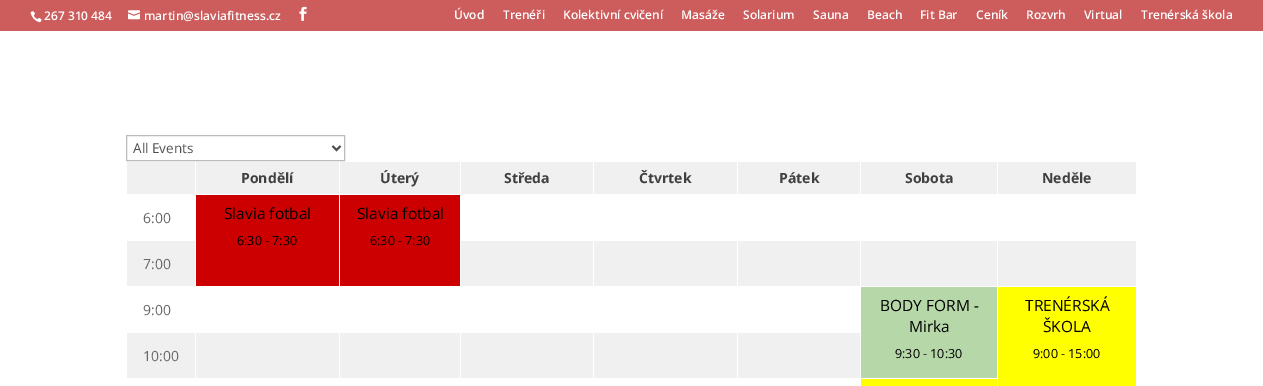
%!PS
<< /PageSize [1263 386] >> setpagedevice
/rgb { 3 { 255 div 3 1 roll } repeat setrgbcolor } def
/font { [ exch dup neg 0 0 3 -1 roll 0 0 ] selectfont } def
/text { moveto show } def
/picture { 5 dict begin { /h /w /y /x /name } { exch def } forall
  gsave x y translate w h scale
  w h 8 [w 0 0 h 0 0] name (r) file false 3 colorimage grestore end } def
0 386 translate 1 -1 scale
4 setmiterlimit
255 255 255 rgb
0 0 1263 386 rectfill
205 92 92 rgb
0 0 1263 31 rectfill
(img_01.rgb) 30 11 12 12 picture
(img_02.rgb) 128 10 12 10 picture
(img_03.rgb) 299 6 8 15 picture
187 187 187 rgb
126.5 135.5 218 25 rectstroke
78 78 78 rgb
2 setlinewidth
332.5 146 moveto 4 4 rlineto 4 -4 rlineto stroke
240 240 240 rgb
127 162 68 32 rectfill
196 162 143 32 rectfill
340 162 120 32 rectfill
461 162 132 32 rectfill
594 162 143 32 rectfill
738 162 122 32 rectfill
861 162 136 32 rectfill
998 162 138 32 rectfill
127 241 1009 45 rectfill
204 0 0 rgb
196 195 143 91 rectfill
255 255 255 rgb
339 241 122 45 rectfill
204 0 0 rgb
340 195 120 91 rectfill
255 255 255 rgb
195 240 1 47 rectfill
593 240 1 47 rectfill
737 240 1 47 rectfill
860 240 1 47 rectfill
997 240 1 47 rectfill
182 215 168 rgb
861 287 136 91 rectfill
255 255 0 rgb
998 287 138 99 rectfill
240 240 240 rgb
127 333 733 45 rectfill
255 255 255 rgb
195 332 1 47 rectfill
339 332 1 47 rectfill
460 332 1 47 rectfill
593 332 1 47 rectfill
737 332 1 47 rectfill
255 255 0 rgb
861 379 136 7 rectfill
/OpenSans-SemiBold 12 font
255 255 255 rgb
(267 310 484) 44 20 text
(martin@slaviafitness.cz) 144 20 text
(Úvod) 454 19 text
(Trenéři) 503 19 text
(Kolektivní cvičení) 563 19 text
(Masáže) 681 19 text
(Solarium) 743 19 text
(Sauna) 813 19 text
(Beach) 867 19 text
(Fit Bar) 920 19 text
(Ceník) 976 19 text
(Rozvrh) 1026 19 text
(Virtual) 1084 19 text
(Trenérská škola) 1141 19 text
/OpenSans-Regular 13.5 font
78 78 78 rgb
(All Events) 133 153 text
/OpenSans-Bold 14 font
64 64 64 rgb
(Pondělí) 241 183 text
(Úterý) 380 183 text
(Středa) 504 183 text
(Čtvrtek) 639 183 text
(Pátek) 779 183 text
(Sobota) 905 183 text
(Neděle) 1042 183 text
/OpenSans-Regular 14 font
102 102 102 rgb
(6:00) 143 223 text
/OpenSans-Regular 15.5 font
0 0 0 rgb
(Slavia fotbal) 224 219 text
/OpenSans-Regular 12.5 font
(6:30 - 7:30) 237 245 text
/OpenSans-Regular 15.5 font
(Slavia fotbal) 357 219 text
/OpenSans-Regular 12.5 font
(6:30 - 7:30) 370 245 text
/OpenSans-Regular 14 font
102 102 102 rgb
(7:00) 143 269 text
(9:00) 143 315 text
/OpenSans-Regular 15.5 font
0 0 0 rgb
(BODY FORM -) 880 311 text
(Mirka) 909 332 text
/OpenSans-Regular 12.5 font
(9:30 - 10:30) 895 358 text
/OpenSans-Regular 15.5 font
(TRENÉRSKÁ) 1025 311 text
(ŠKOLA) 1043 332 text
/OpenSans-Regular 12.5 font
(9:00 - 15:00) 1033 358 text
/OpenSans-Regular 14 font
102 102 102 rgb
(10:00) 143 361 text
showpage
